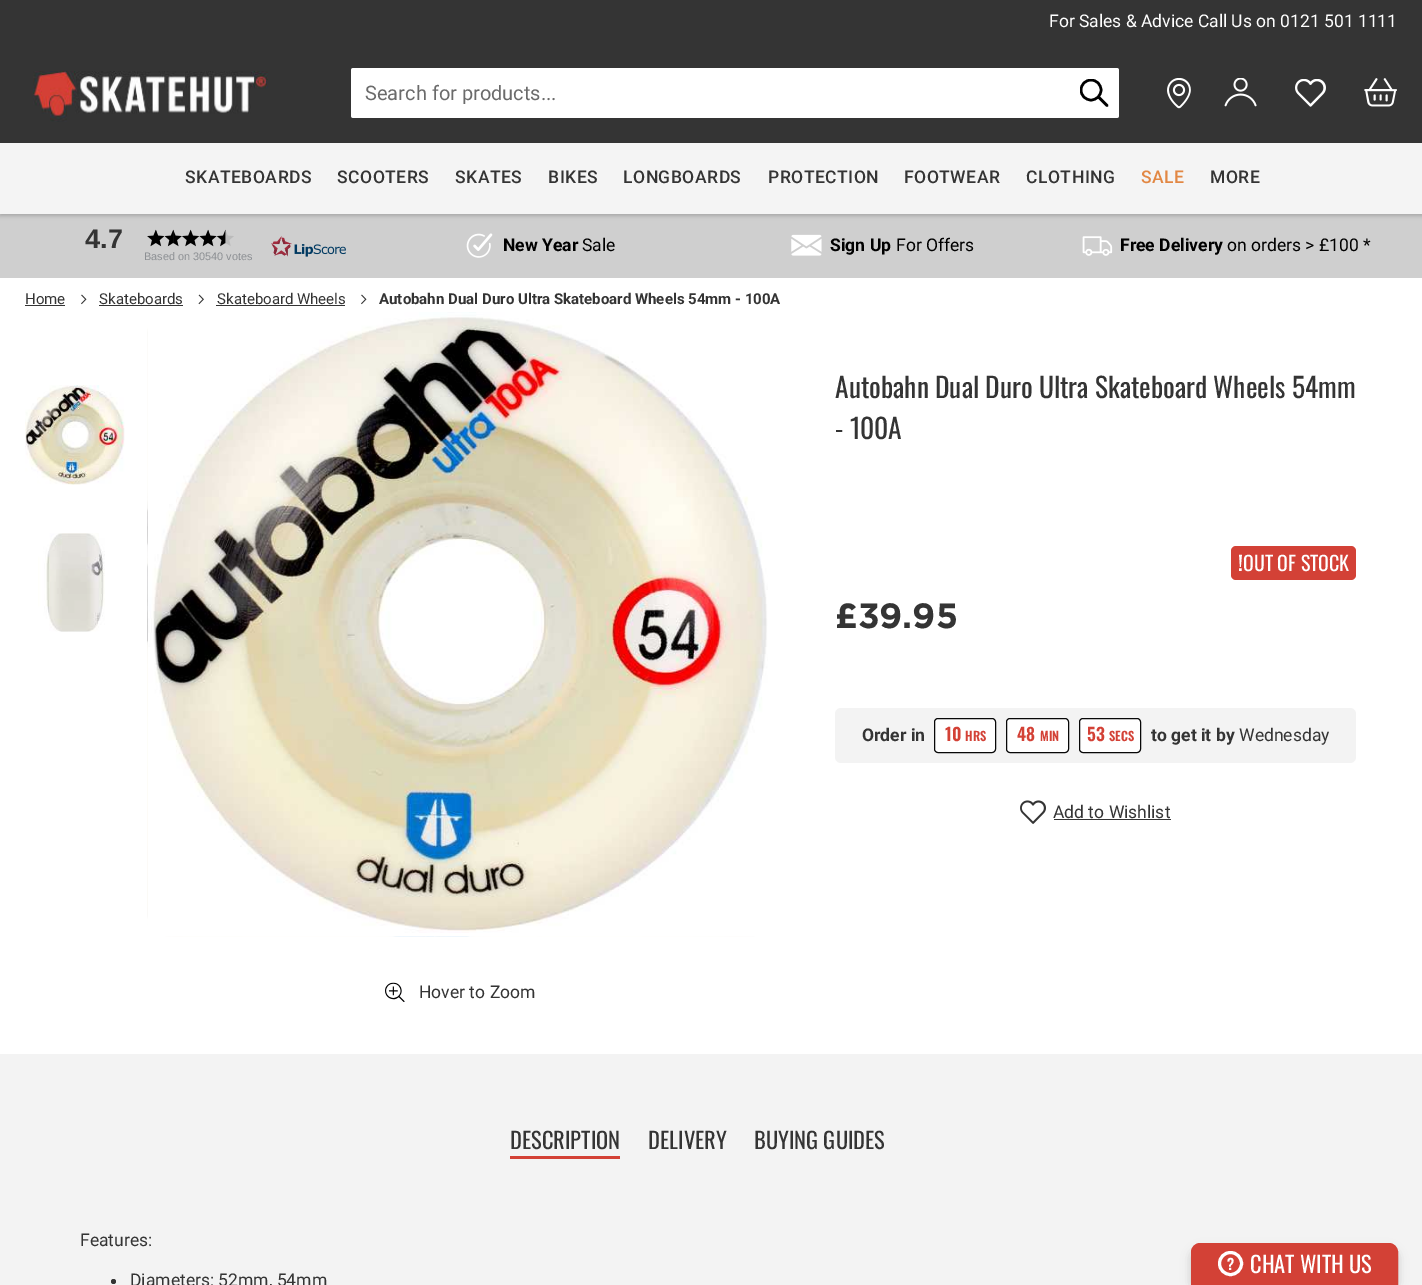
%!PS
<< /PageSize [1422 1285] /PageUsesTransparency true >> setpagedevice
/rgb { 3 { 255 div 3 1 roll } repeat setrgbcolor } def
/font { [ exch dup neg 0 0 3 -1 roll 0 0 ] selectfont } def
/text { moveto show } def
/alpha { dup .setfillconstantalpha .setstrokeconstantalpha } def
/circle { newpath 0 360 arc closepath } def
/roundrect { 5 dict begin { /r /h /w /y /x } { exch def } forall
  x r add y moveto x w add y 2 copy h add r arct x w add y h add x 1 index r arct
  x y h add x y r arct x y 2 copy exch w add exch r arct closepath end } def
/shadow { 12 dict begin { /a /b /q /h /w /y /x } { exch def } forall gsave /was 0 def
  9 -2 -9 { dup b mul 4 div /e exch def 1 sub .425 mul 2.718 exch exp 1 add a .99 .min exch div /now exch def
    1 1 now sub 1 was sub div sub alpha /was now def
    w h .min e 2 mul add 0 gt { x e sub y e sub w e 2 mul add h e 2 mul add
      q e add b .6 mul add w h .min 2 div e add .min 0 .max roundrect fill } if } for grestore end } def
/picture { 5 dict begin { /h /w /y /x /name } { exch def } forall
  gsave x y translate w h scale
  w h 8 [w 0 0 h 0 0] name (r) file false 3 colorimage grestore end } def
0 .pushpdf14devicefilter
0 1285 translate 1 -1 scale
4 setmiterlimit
255 255 255 rgb
0 0 1422 1285 rectfill
52 52 52 rgb
0 0 1422 143 rectfill
(img_01.rgb) 33 71 235 51 picture
255 255 255 rgb
353.5 68 moveto 716.5 0 rlineto 0 50 rlineto -716.5 0 rlineto -1.5 0 -2.5 -1 -2.5 -2.5 rcurveto 0 -45 rlineto 0 -1.5 1 -2.5 2.5 -2.5 rcurveto closepath fill
1069 68 moveto 47.5 0 rlineto 1.5 0 2.5 1 2.5 2.5 rcurveto 0 45 rlineto 0 1.5 -1 2.5 -2.5 2.5 rcurveto -47.5 0 rlineto closepath fill
gsave
1080 79 29 29 rectclip
0 0 0 rgb
2.5 setlinewidth
1091 90 10 circle stroke
grestore
0 0 0 rgb
2.5 setlinewidth
1 setlinecap
1099 97.5 moveto 8 8 rlineto stroke
(img_02.rgb) 1167 78 24 31 picture
(img_03.rgb) 1224 78 33 29 picture
(img_04.rgb) 1295 79 31 28 picture
(img_05.rgb) 1364 78 33 29 picture
207 207 207 rgb
0 214 1422 64 rectfill
52 52 52 rgb
0 145 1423 71 0 2 0.25 shadow
244 244 244 rgb
0 143 1422 71 rectfill
(img_06.rgb) 147 229 199 28 picture
(img_07.rgb) 466 233 27 25 picture
(img_08.rgb) 791 234 31 22 picture
(img_09.rgb) 1082 236 31 20 picture
52 52 52 rgb
25 305 40 1 rectfill
(img_10.rgb) 81 294 6 11 picture
99 305 84 1 rectfill
(img_11.rgb) 198 294 6 11 picture
216 305 129 1 rectfill
(img_10.rgb) 361 294 6 11 picture
211 65 54 rgb
1231 546 125 34 5 roundrect fill
243 243 243 rgb
835 708 521 55 6 roundrect fill
255 255 255 rgb
934.5 718.5 61 34 3.5 roundrect gsave fill grestore
8 8 8 rgb
1 setlinewidth
0 setlinecap
stroke
255 255 255 rgb
1006.5 718.5 62 34 3.5 roundrect gsave fill grestore
8 8 8 rgb
stroke
255 255 255 rgb
1079.5 718.5 61 34 3.5 roundrect gsave fill grestore
8 8 8 rgb
stroke
(img_12.rgb) 1020 800 26 24 picture
52 52 52 rgb
1054 819 117 1 rectfill
(img_13.rgb) 25 385 100 100 picture
(img_14.rgb) 38 533 67 99 picture
(img_15.rgb) 147 311 625 626 picture
255 255 255 rgb
148 311 624 625 rectfill
(img_16.rgb) 147 312 621 621 picture
(img_17.rgb) 385 982 20 20 picture
243 243 243 rgb
0 1054 1422 231 rectfill
211 65 54 rgb
510 1156 110 3 rectfill
52 52 52 rgb
113.5 1281.5 2.5 circle fill
1191 1249 207 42 9 5 0.24 shadow
211 65 54 rgb
1200 1243.5 moveto 189 0 rlineto 4.5 0 8.5 4 8.5 8.5 rcurveto 0 32.5 rlineto -206 0 rlineto 0 -32.5 rlineto 0 -4.5 4 -8.5 8.5 -8.5 rcurveto closepath gsave fill grestore
stroke
255 255 255 rgb
3 setlinewidth
1230.5 1263.5 11 circle stroke
/Roboto-Regular 17.5 font
(For Sales & Advice Call Us on 0121 501 1111) 1049 27 text
/Roboto-Regular 20 font
107 107 107 rgb
(Search for products...) 365 100 text
/Roboto-Medium 17.5 font
52 52 52 rgb
185 183 moveto 0.5 0 (SKATEBOARDS) ashow
337 183 moveto 0.5 0 (SCOOTERS) ashow
455 183 moveto 0.5 0 (SKATES) ashow
548 183 moveto 0.5 0 (BIKES) ashow
623 183 moveto 0.5 0 (LONGBOARDS) ashow
768 183 moveto 0.5 0 (PROTECTION) ashow
904 183 moveto 0.5 0 (FOOTWEAR) ashow
1026 183 moveto 0.5 0 (CLOTHING) ashow
226 135 67 rgb
1141 183 moveto 0.5 0 (SALE) ashow
52 52 52 rgb
1210 183 moveto 0.5 0 (MORE) ashow
/LiberationSans-Bold 27 font
(4.7) 85 248 text
/LiberationSans-Regular 10.9 font
140 143 147 rgb
(Based on 30540 votes) 144 260 text
/Roboto-Bold 17.5 font
0 0 0 rgb
(New Year) 503 251 text
/Roboto-Regular 17.5 font
(Sale) 582 251 text
/Roboto-Bold 17.5 font
(Sign Up) 830 251 text
/Roboto-Regular 17.5 font
(For Offers) 896 251 text
/Roboto-Bold 17.5 font
(Free Delivery) 1120 251 text
/Roboto-Regular 17.5 font
(on orders > £100 *) 1227 251 text
/Roboto-Regular 15 font
52 52 52 rgb
(Home) 25 304 text
(Skateboards) 99 304 text
(Skateboard Wheels) 217 304 text
/Roboto-Bold 15 font
(Autobahn Dual Duro Ultra Skateboard Wheels 54mm - 100A) 379 304 text
/Oswald-Regular 27.5 font
(Autobahn Dual Duro Ultra Skateboard Wheels 54mm) 835 398 text
(- 100A) 835 439 text
/Oswald-SemiBold 20 font
255 255 255 rgb
(!) 1238 571 text
/Oswald-Regular 20 font
(OUT OF STOCK) 1243 571 text
/Gotham-Bold 35 font
52 52 52 rgb
(£39.95) 835 628 text
/Roboto-Bold 17.5 font
(Order in) 862 741 text
/Oswald-SemiBold 17.5 font
211 65 54 rgb
(10) 945 741 text
/Oswald-SemiBold 12.5 font
(HRS) 965 741 text
/Oswald-SemiBold 17.5 font
(48) 1017 741 text
/Oswald-SemiBold 12.5 font
(MIN) 1040 741 text
/Oswald-SemiBold 17.5 font
(53) 1087 741 text
/Oswald-SemiBold 12.5 font
(SECS) 1109 741 text
/Roboto-Bold 17.5 font
52 52 52 rgb
(to get it by) 1151 741 text
/Roboto-Regular 17.5 font
(Wednesday) 1239 741 text
(Add to Wishlist) 1053 818 text
(Hover to Zoom) 419 998 text
/Oswald-Regular 22.5 font
(DESCRIPTION) 510 1149 text
(DELIVERY) 648 1149 text
(BUYING GUIDES) 754 1149 text
/Roboto-Regular 17.5 font
(Features:) 80 1246 text
(Diameters: 52mm, 54mm) 130 1286 text
/Oswald-SemiBold 15 font
255 255 255 rgb
(?) 1227 1270 text
/Oswald-Regular 22.5 font
(CHAT WITH US) 1250 1273 text
.poppdf14devicefilter showpage
